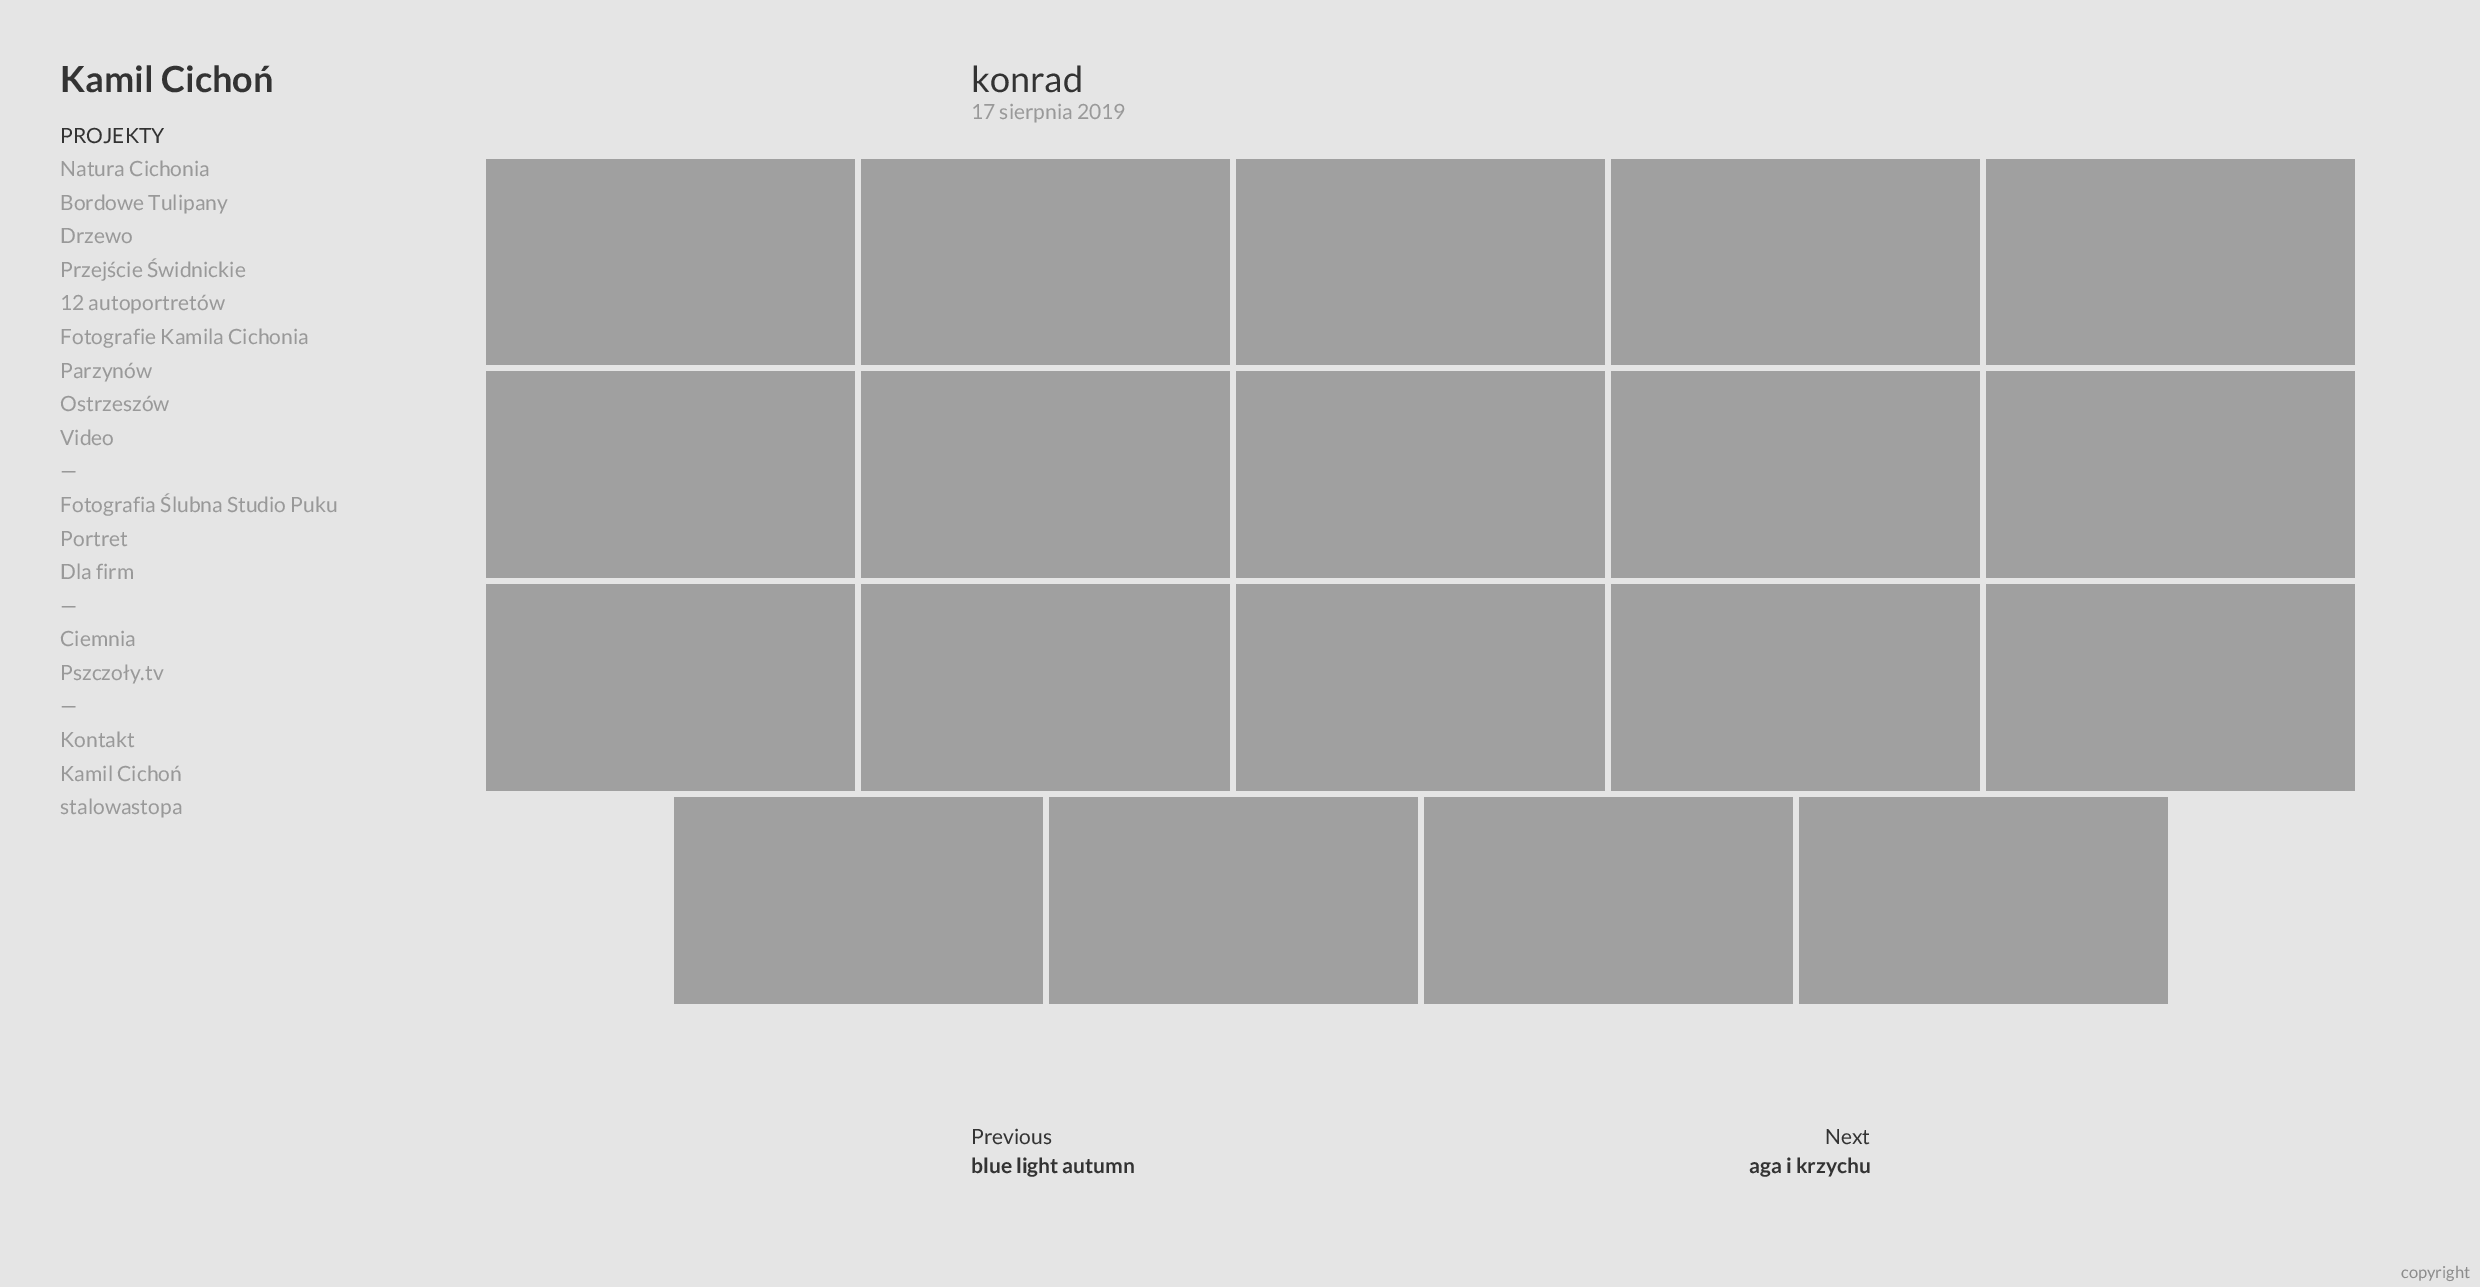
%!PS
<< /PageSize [2480 1287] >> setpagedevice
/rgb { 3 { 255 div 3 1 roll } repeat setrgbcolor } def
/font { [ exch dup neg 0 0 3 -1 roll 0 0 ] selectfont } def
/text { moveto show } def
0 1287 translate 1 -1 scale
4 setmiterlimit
229 229 229 rgb
0 0 2480 1287 rectfill
160 160 160 rgb
486 159 369 206 rectfill
861 159 369 206 rectfill
1236 159 369 206 rectfill
1611 159 369 206 rectfill
1986 159 369 206 rectfill
486 371 369 207 rectfill
861 371 369 207 rectfill
1236 371 369 207 rectfill
1611 371 369 207 rectfill
1986 371 369 207 rectfill
486 584 369 207 rectfill
861 584 369 207 rectfill
1236 584 369 207 rectfill
1611 584 369 207 rectfill
1986 584 369 207 rectfill
674 797 369 207 rectfill
1049 797 369 207 rectfill
1424 797 369 207 rectfill
1799 797 369 207 rectfill
/Lato-Bold 36 font
51 51 51 rgb
(Kamil Cichoń) 60 92 text
/Lato-Regular 21 font
(PROJEKTY) 60 143 text
153 153 153 rgb
(Natura Cichonia) 60 176 text
(Bordowe Tulipany) 60 210 text
(Drzewo) 60 243 text
(Przejście Świdnickie) 60 277 text
(12 autoportretów) 60 310 text
(Fotografie Kamila Cichonia) 60 344 text
(Parzynów) 60 378 text
(Ostrzeszów) 60 411 text
(Video) 60 445 text
(—) 60 478 text
(Fotografia Ślubna Studio Puku) 60 512 text
(Portret) 60 546 text
(Dla firm) 60 579 text
(—) 60 613 text
(Ciemnia) 60 646 text
(Pszczoły.tv) 60 680 text
(—) 60 713 text
(Kontakt) 60 747 text
(Kamil Cichoń) 60 781 text
(stalowastopa) 60 814 text
/Lato-Regular 36 font
51 51 51 rgb
(konrad) 971 92 text
/Lato-Regular 21 font
153 153 153 rgb
(17 sierpnia 2019) 971 119 text
51 51 51 rgb
(Previous) 971 1144 text
/Lato-Bold 21 font
(blue light autumn) 971 1173 text
/Lato-Regular 21 font
(Next) 1825 1144 text
/Lato-Bold 21 font
(aga i krzychu) 1749 1173 text
/Lato-Regular 16.5 font
140 140 140 rgb
(copyright) 2401 1278 text
showpage
